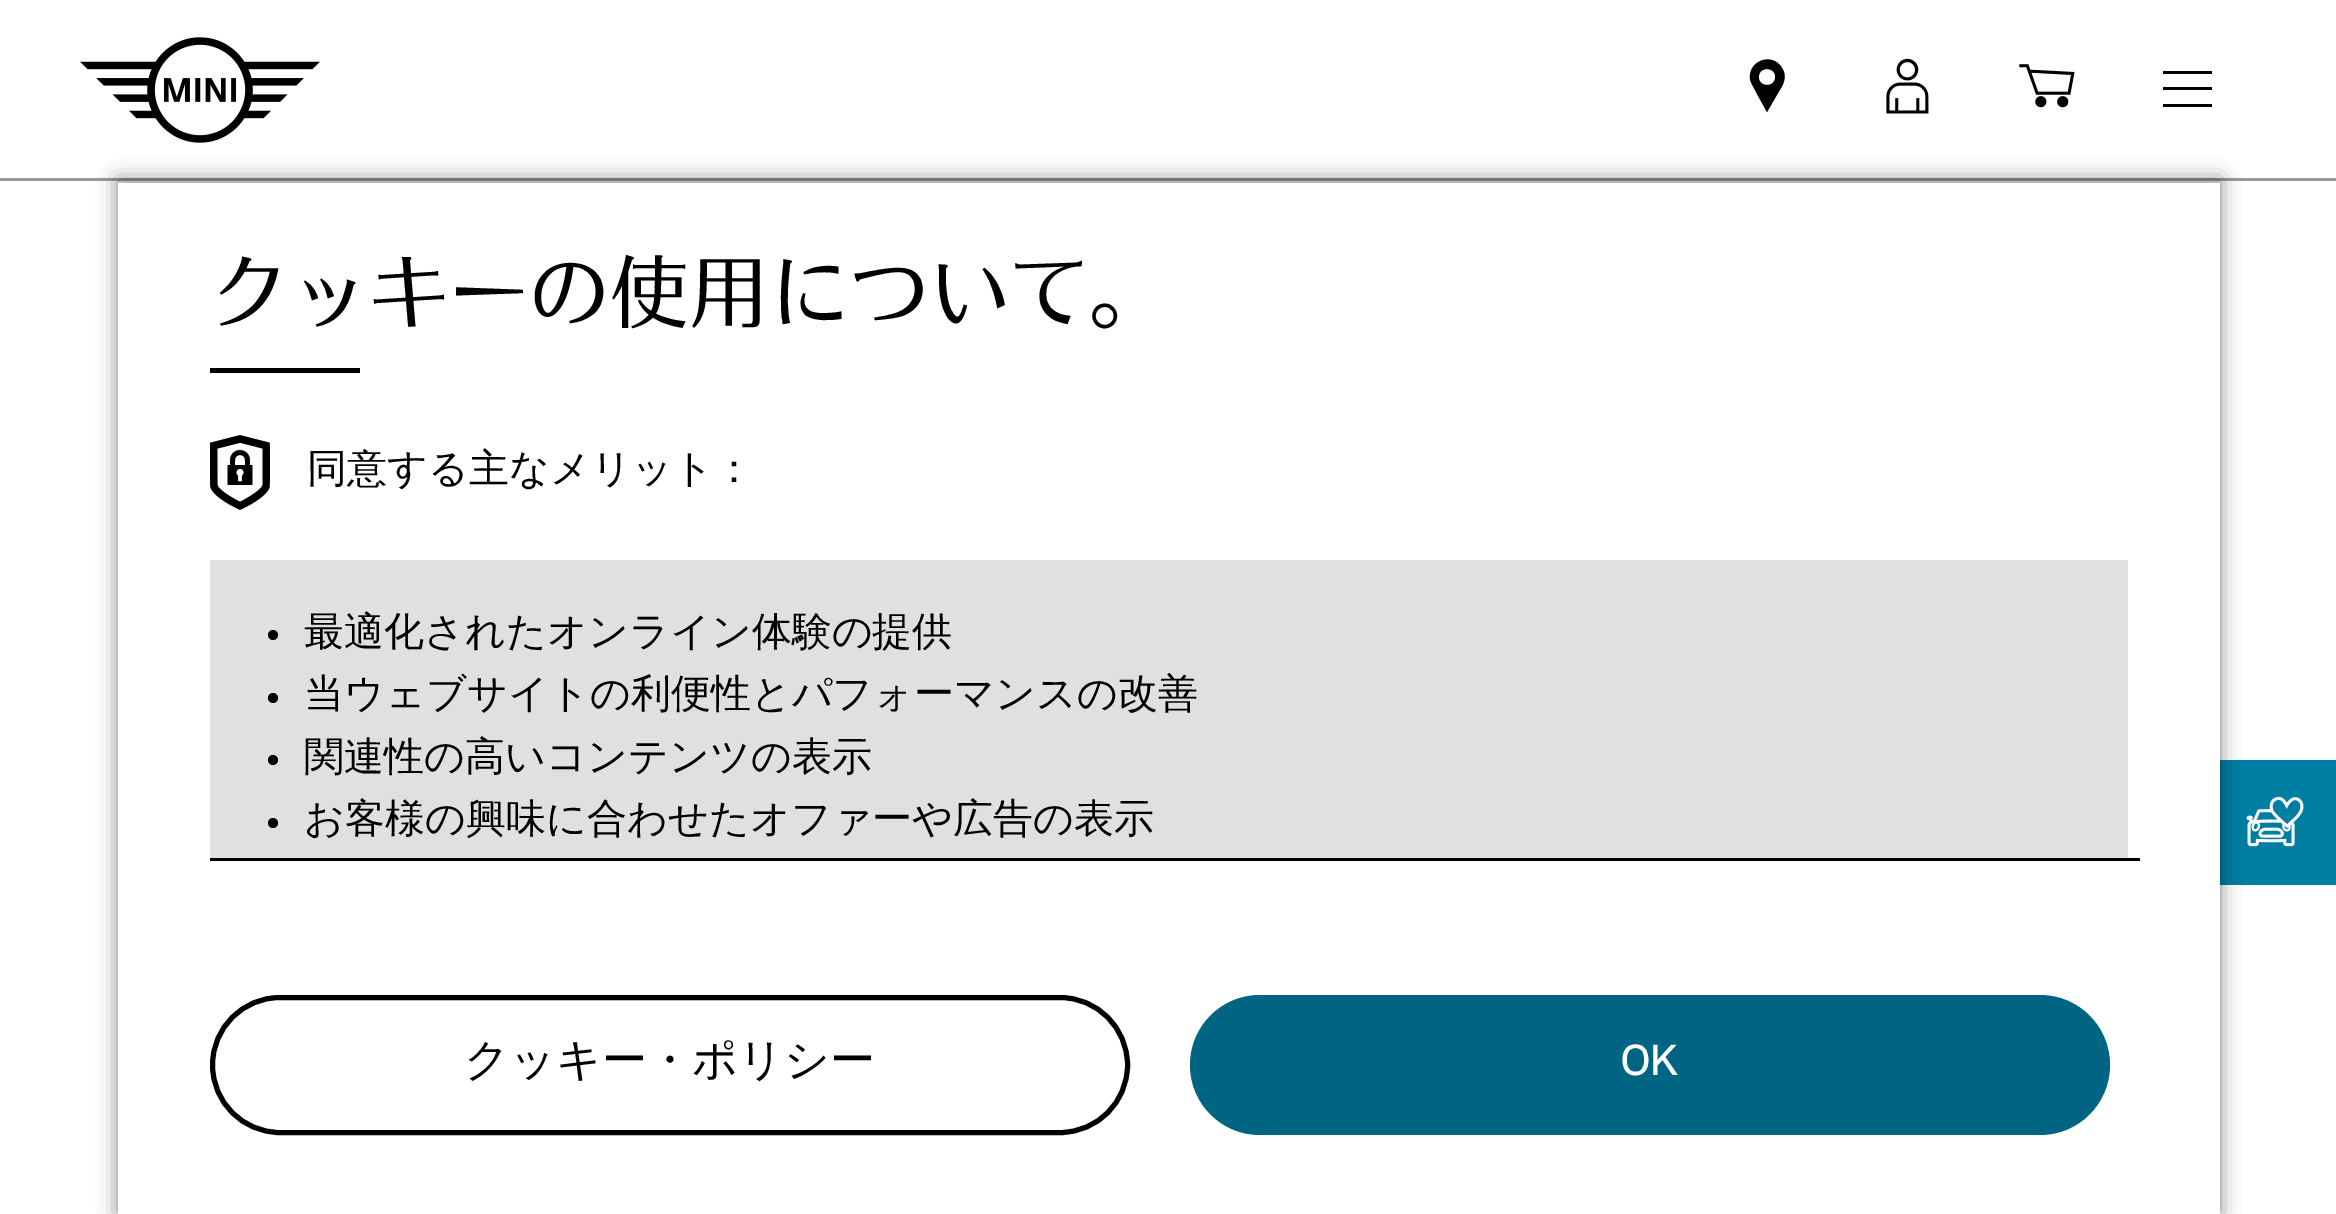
%!PS
<< /PageSize [2336 1214] /PageUsesTransparency true >> setpagedevice
/rgb { 3 { 255 div 3 1 roll } repeat setrgbcolor } def
/font { [ exch dup neg 0 0 3 -1 roll 0 0 ] selectfont } def
/text { moveto show } def
/alpha { dup .setfillconstantalpha .setstrokeconstantalpha } def
/circle { newpath 0 360 arc closepath } def
/roundrect { 5 dict begin { /r /h /w /y /x } { exch def } forall
  x r add y moveto x w add y 2 copy h add r arct x w add y h add x 1 index r arct
  x y h add x y r arct x y 2 copy exch w add exch r arct closepath end } def
/shadow { 12 dict begin { /a /b /q /h /w /y /x } { exch def } forall gsave /was 0 def
  9 -2 -9 { dup b mul 4 div /e exch def 1 sub .425 mul 2.718 exch exp 1 add a .99 .min exch div /now exch def
    1 1 now sub 1 was sub div sub alpha /was now def
    w h .min e 2 mul add 0 gt { x e sub y e sub w e 2 mul add h e 2 mul add
      q e add b .6 mul add w h .min 2 div e add .min 0 .max roundrect fill } if } for grestore end } def
/picture { 5 dict begin { /h /w /y /x /name } { exch def } forall
  gsave x y translate w h scale
  w h 8 [w 0 0 h 0 0] name (r) file false 3 colorimage grestore end } def
0 .pushpdf14devicefilter
0 1214 translate 1 -1 scale
4 setmiterlimit
255 255 255 rgb
0 0 2336 1214 rectfill
153 153 153 rgb
0 178 2336 3 rectfill
(img_01.rgb) 80 37 240 106 picture
0 0 0 rgb
1782 68 moveto -9 -16 -34 -8 -32 11 rcurveto 1 5 5 10 7 15 rcurveto 10 18 rlineto 11 -19 rlineto 5 -8 10 -16 4 -25 rcurveto closepath 1767 85 moveto -11 0 -11 -16 0 -16 rcurveto 11 0 11 16 0 16 rcurveto closepath fill
(img_02.rgb) 1886 58 43 56 picture
(img_03.rgb) 2019 64 56 44 picture
2163 71 moveto 0 3 rlineto 49 0 rlineto 0 -3 rlineto closepath 2163 90 moveto 49 0 rlineto 0 -3 rlineto -49 0 rlineto closepath 2163 107 moveto 49 0 rlineto 0 -3 rlineto -49 0 rlineto closepath fill
0 125 163 rgb
2220 760 116 125 rectfill
(img_05.rgb) 2246 796 58 51 picture
0 0 0 rgb
118 180 2102 1033 0 10 0.5 shadow
255 255 255 rgb
118 183 2102 1031 rectfill
0 0 0 rgb
210 368 150 5 rectfill
(img_04.rgb) 210 435 60 75 picture
224 224 224 rgb
210 560 1918 298 rectfill
0 0 0 rgb
273 635 5 circle fill
273 698 5 circle fill
273 760 5 circle fill
273 823 5 circle fill
210 858 1930 3 rectfill
5 setlinewidth
212.5 997.5 915 135 67.5 roundrect stroke
0 101 131 rgb
1190 995 920 140 70 roundrect fill
/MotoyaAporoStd-Regular 80 font
0 0 0 rgb
(クッキーの使用について。) 209 322 text
/WenQuanYiZenHei-Medium 40 font
(同意する主なメリット：) 307 482 text
(最適化されたオンライン体験の提供) 304 645 text
(当ウェブサイトの利便性とパフォーマンスの改善) 304 707 text
(関連性の高いコンテンツの表示) 304 770 text
(お客様の興味に合わせたオファーや広告の表示) 304 832 text
/WenQuanYiZenHei-Medium 45 font
(クッキー・ポリシー) 464 1075 text
/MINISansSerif-Regular 45 font
255 255 255 rgb
(OK) 1621 1075 text
.poppdf14devicefilter showpage
